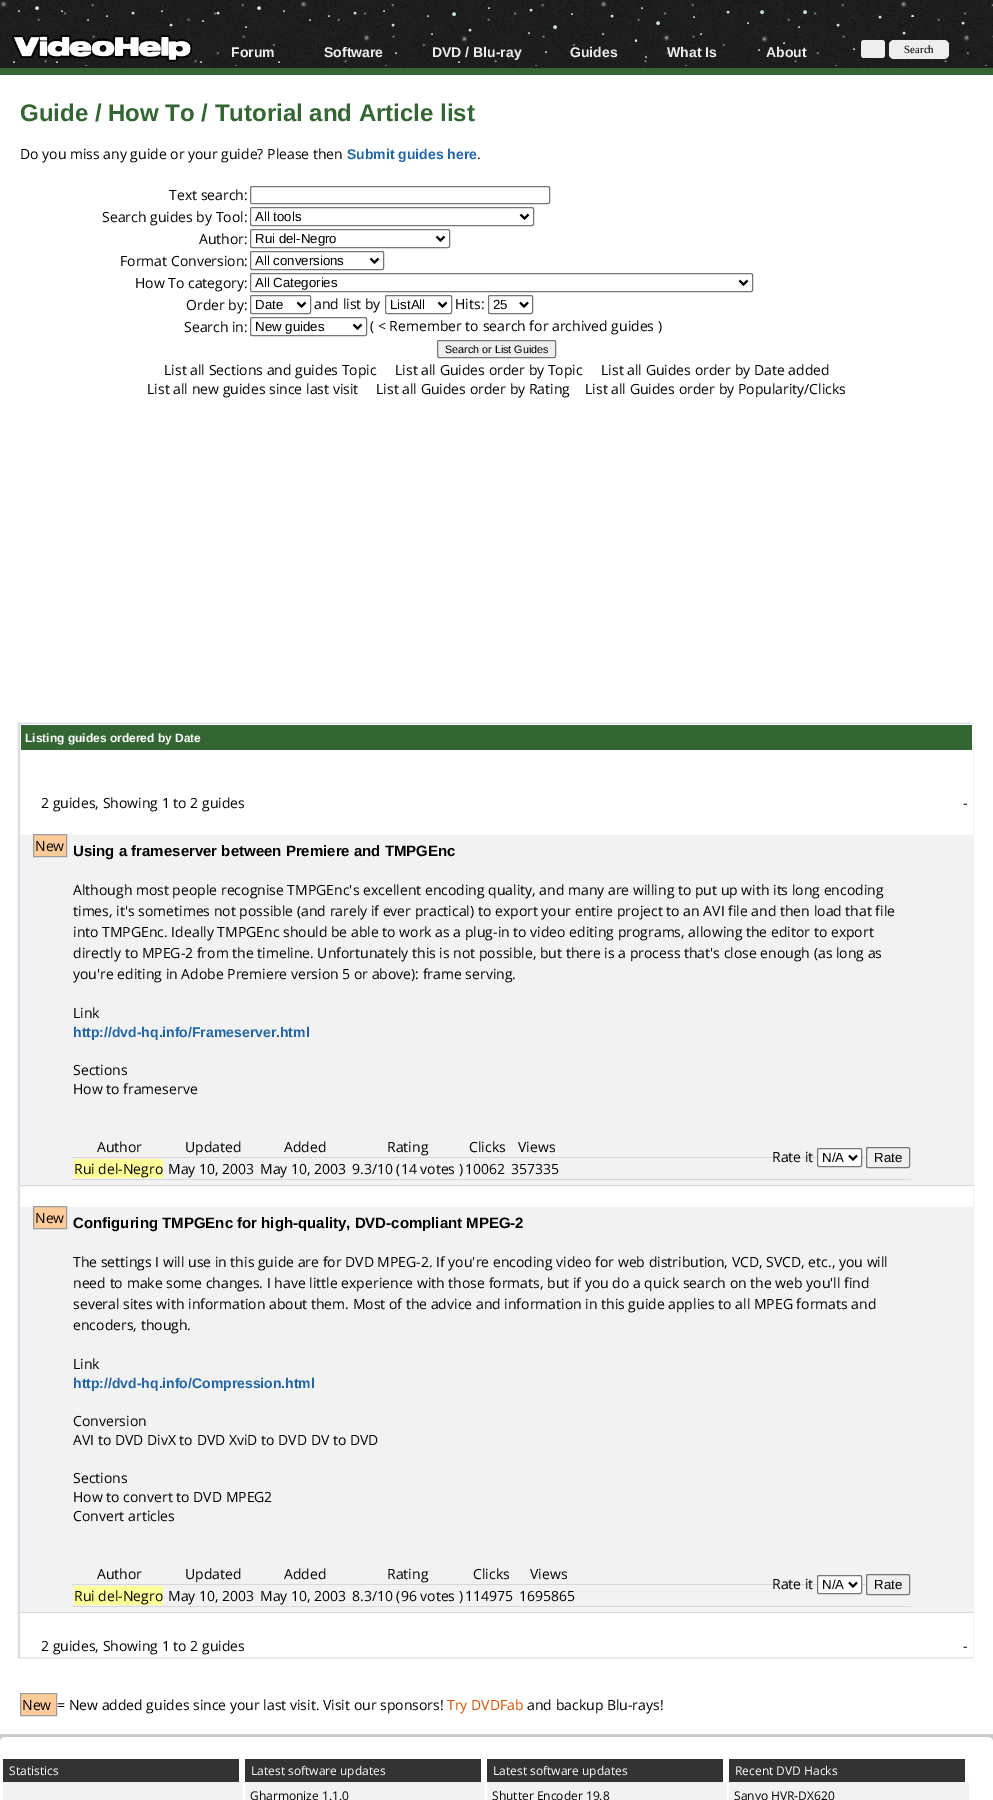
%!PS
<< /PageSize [993 1800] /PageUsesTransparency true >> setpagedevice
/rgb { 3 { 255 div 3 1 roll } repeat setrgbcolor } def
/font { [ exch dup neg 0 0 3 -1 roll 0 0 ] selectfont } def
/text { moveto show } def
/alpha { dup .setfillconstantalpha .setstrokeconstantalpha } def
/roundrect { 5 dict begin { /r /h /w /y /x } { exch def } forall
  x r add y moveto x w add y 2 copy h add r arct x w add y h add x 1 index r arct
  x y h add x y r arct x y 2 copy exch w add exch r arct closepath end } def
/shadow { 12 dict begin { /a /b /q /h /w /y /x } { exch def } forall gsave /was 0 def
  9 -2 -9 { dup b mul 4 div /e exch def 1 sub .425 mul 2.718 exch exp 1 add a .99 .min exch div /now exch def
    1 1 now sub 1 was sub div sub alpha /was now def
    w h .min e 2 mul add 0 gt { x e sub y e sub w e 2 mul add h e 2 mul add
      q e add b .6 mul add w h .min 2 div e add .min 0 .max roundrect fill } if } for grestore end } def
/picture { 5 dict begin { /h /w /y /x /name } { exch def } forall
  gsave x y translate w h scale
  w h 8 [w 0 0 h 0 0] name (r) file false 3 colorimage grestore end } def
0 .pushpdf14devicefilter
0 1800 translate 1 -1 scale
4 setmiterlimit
202 204 204 rgb
0 0 993 1800 rectfill
34 34 34 rgb
0 0 993 68 rectfill
(img_02.rgb) 0 0 993 68 picture
(img_01.rgb) 0 1 993 65 picture
51 102 51 rgb
0 68 993 7 rectfill
(img_03.rgb) 12 34 180 28 picture
238 238 238 rgb
861 40 24 18 3 roundrect fill
889 40 60 19 5 roundrect fill
255 255 255 rgb
0 75 993 1659 rectfill
118 118 118 rgb
250.5 186.5 299 17 1.5 roundrect stroke
250.5 207.5 283 18 1.5 roundrect stroke
0 0 0 rgb
2 setlinewidth
520.5 214.5 moveto 4 4 rlineto 4 -4 rlineto stroke
118 118 118 rgb
1 setlinewidth
250.5 229.5 199 18 1.5 roundrect stroke
0 0 0 rgb
2 setlinewidth
436.5 236.5 moveto 4 4 rlineto 4 -4 rlineto stroke
118 118 118 rgb
1 setlinewidth
250.5 251.5 133 18 1.5 roundrect stroke
0 0 0 rgb
2 setlinewidth
370.5 258.5 moveto 4 4 rlineto 4 -4 rlineto stroke
118 118 118 rgb
1 setlinewidth
250.5 273.5 502 18 1.5 roundrect stroke
0 0 0 rgb
2 setlinewidth
739.5 280.5 moveto 4 4 rlineto 4 -4 rlineto stroke
118 118 118 rgb
1 setlinewidth
250.5 295.5 60 18 1.5 roundrect stroke
0 0 0 rgb
2 setlinewidth
297.5 302.5 moveto 4 4 rlineto 4 -4 rlineto stroke
118 118 118 rgb
1 setlinewidth
385.5 295.5 66 18 1.5 roundrect stroke
0 0 0 rgb
2 setlinewidth
438.5 302.5 moveto 4 4 rlineto 4 -4 rlineto stroke
118 118 118 rgb
1 setlinewidth
488.5 295.5 44 18 1.5 roundrect stroke
0 0 0 rgb
2 setlinewidth
520 302.5 moveto 4 4 rlineto 4 -4 rlineto stroke
118 118 118 rgb
1 setlinewidth
250.5 317.5 116 18 1.5 roundrect stroke
0 0 0 rgb
2 setlinewidth
353.5 324.5 moveto 4 4 rlineto 4 -4 rlineto stroke
239 239 239 rgb
437.5 340.5 118 17 1.5 roundrect gsave fill grestore
118 118 118 rgb
1 setlinewidth
stroke
gsave
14 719 moveto 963 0 rlineto 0 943 rlineto -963 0 rlineto closepath 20 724 moveto 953 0 rlineto 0 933 rlineto -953 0 rlineto closepath eoclip newpath
203 208 214 rgb
18 723 955 935 0 1 0.87 shadow
grestore
51 102 51 rgb
21 725 951 25 rectfill
242 242 242 rgb
20 835 953 351 1 roundrect fill
216 216 216 rgb
20 1185 954 1 rectfill
255 204 153 rgb
33.5 834.5 moveto 33 0 rlineto 0 22 rlineto -33 0 rlineto closepath gsave fill grestore
156 156 156 rgb
stroke
216 216 216 rgb
72 1157 839 1 rectfill
255 255 255 rgb
817.5 1148.5 44 18 1.5 roundrect gsave fill grestore
118 118 118 rgb
stroke
0 0 0 rgb
2 setlinewidth
849 1155.5 moveto 4 4 rlineto 4 -4 rlineto stroke
239 239 239 rgb
866.5 1147.5 43 20 1.5 roundrect gsave fill grestore
118 118 118 rgb
1 setlinewidth
stroke
216 216 216 rgb
72 1179 839 1 rectfill
255 255 153 rgb
74 1159 89 19 rectfill
242 242 242 rgb
20 1207 953 406 1 roundrect fill
216 216 216 rgb
20 1612 954 1 rectfill
255 204 153 rgb
33.5 1206.5 moveto 33 0 rlineto 0 22 rlineto -33 0 rlineto closepath gsave fill grestore
156 156 156 rgb
stroke
216 216 216 rgb
72 1584 839 1 rectfill
255 255 255 rgb
817.5 1575.5 44 18 1.5 roundrect gsave fill grestore
118 118 118 rgb
stroke
0 0 0 rgb
2 setlinewidth
849 1582.5 moveto 4 4 rlineto 4 -4 rlineto stroke
239 239 239 rgb
866.5 1574.5 43 20 1.5 roundrect gsave fill grestore
118 118 118 rgb
1 setlinewidth
stroke
216 216 216 rgb
72 1606 839 1 rectfill
255 255 153 rgb
74 1586 89 19 rectfill
255 204 153 rgb
20.5 1693.5 moveto 36 0 rlineto 0 22 rlineto -36 0 rlineto closepath gsave fill grestore
156 156 156 rgb
stroke
255 255 255 rgb
0 1737 993 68 5 roundrect fill
51 51 51 rgb
3 1759 236 23 rectfill
242 242 242 rgb
3 1782 240 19 1 roundrect fill
51 51 51 rgb
245 1759 236 23 rectfill
242 242 242 rgb
245 1782 240 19 1 roundrect fill
51 51 51 rgb
487 1759 236 23 rectfill
242 242 242 rgb
487 1782 240 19 1 roundrect fill
51 51 51 rgb
729 1759 236 23 rectfill
242 242 242 rgb
729 1782 240 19 1 roundrect fill
/LiberationSans-Bold 14 font
238 238 238 rgb
(Forum) 231 57 text
(Software) 324 57 text
(DVD / Blu-ray) 432 57 text
(Guides) 570 57 text
(What Is) 667 57 text
(About) 766 57 text
/LiberationSerif-Regular 11 font
0 0 0 rgb
(Search) 904 53 text
/LiberationSans-Bold 24 font
51 102 51 rgb
(Guide / How To / Tutorial and Article list) 20 121 text
/OpenSans-Regular 14 font
0 0 0 rgb
(Do you miss any guide or your guide? Please then) 20 159 text
/LiberationSans-Bold 14 font
33 101 165 rgb
(Submit guides here) 347 159 text
/OpenSans-Regular 14 font
0 0 0 rgb
(.) 477 159 text
(Text search:) 169 200 text
(Search guides by Tool:) 102 222 text
/LiberationSans-Regular 13.25 font
(All tools) 255 221 text
/OpenSans-Regular 14 font
(Author:) 199 244 text
/LiberationSans-Regular 13.25 font
(Rui del-Negro) 255 243 text
/OpenSans-Regular 14 font
(Format Conversion:) 120 266 text
/LiberationSans-Regular 13.25 font
(All conversions) 255 265 text
/OpenSans-Regular 14 font
(How To category:) 135 288 text
/LiberationSans-Regular 13.25 font
(All Categories) 255 287 text
/OpenSans-Regular 14 font
(Order by:) 186 310 text
/LiberationSans-Regular 13.25 font
(Date) 255 309 text
/OpenSans-Regular 14 font
(and list by) 314 309 text
/LiberationSans-Regular 13.25 font
(ListAll) 390 309 text
/OpenSans-Regular 14 font
(Hits:) 455 309 text
/LiberationSans-Regular 13.25 font
(25) 493 309 text
/OpenSans-Regular 14 font
(Search in:) 184 332 text
/LiberationSans-Regular 13.25 font
(New guides) 255 331 text
/OpenSans-Regular 14 font
(\( < Remember to search for archived guides \)) 370 331 text
/LiberationSans-Regular 10.75 font
(Search or List Guides) 445 353 text
/OpenSans-Regular 14 font
(List all Sections and guides Topic) 164 375 text
(List all Guides order by Topic) 395 375 text
(List all Guides order by Date added) 601 375 text
(List all new guides since last visit) 147 394 text
(List all Guides order by Rating) 376 394 text
(List all Guides order by Popularity/Clicks) 585 394 text
/LiberationSans-Bold 12 font
255 255 255 rgb
(Listing guides ordered by Date) 25 742 text
/OpenSans-Regular 14 font
0 0 0 rgb
(2 guides, Showing 1 to 2 guides) 41 808 text
(-) 963 808 text
(New) 35 851 text
/LiberationSans-Bold 15 font
(Using a frameserver between Premiere and TMPGEnc) 73 856 text
/OpenSans-Regular 14 font
(Although most people recognise TMPGEnc's excellent encoding quality, and many are willing to put up with its long encoding) 73 895 text
(times, it's sometimes not possible \(and rarely if ever practical\) to export your entire project to an AVI file and then load that file) 73 916 text
(into TMPGEnc. Ideally TMPGEnc should be able to work as a plug-in to video editing programs, allowing the editor to export) 73 937 text
(directly to MPEG-2 from the timeline. Unfortunately this is not possible, but there is a process that's close enough \(as long as) 73 958 text
(you're editing in Adobe Premiere version 5 or above\): frame serving.) 73 979 text
(Link) 73 1018 text
/LiberationSans-Bold 14 font
33 101 165 rgb
(http://dvd-hq.info/Frameserver.html) 73 1037 text
/OpenSans-Regular 14 font
0 0 0 rgb
(Sections) 73 1075 text
(How to frameserve) 73 1094 text
(Author) 97 1152 text
(Updated) 185 1152 text
(Added) 284 1152 text
(Rating) 387 1152 text
(Clicks) 469 1152 text
(Views) 518 1152 text
(Rate it) 772 1162 text
/LiberationSans-Regular 13.25 font
(N/A) 822 1162 text
(Rate) 874 1162 text
/OpenSans-Regular 14 font
(Rui del-Negro) 74 1174 text
(May 10, 2003) 168 1174 text
(May 10, 2003) 260 1174 text
(9.3/10 \(14 votes \)) 352 1174 text
(10062) 465 1174 text
(357335) 511 1174 text
(New) 35 1223 text
/LiberationSans-Bold 15 font
(Configuring TMPGEnc for high-quality, DVD-compliant MPEG-2) 73 1228 text
/OpenSans-Regular 14 font
(The settings I will use in this guide are for DVD MPEG-2. If you're encoding video for web distribution, VCD, SVCD, etc., you will) 73 1267 text
(need to make some changes. I have little experience with those formats, but if you do a quick search on the web you'll find) 73 1288 text
(several sites with information about them. Most of the advice and information in this guide applies to all MPEG formats and) 73 1309 text
(encoders, though.) 73 1330 text
(Link) 73 1369 text
/LiberationSans-Bold 14 font
33 101 165 rgb
(http://dvd-hq.info/Compression.html) 73 1388 text
/OpenSans-Regular 14 font
0 0 0 rgb
(Conversion) 73 1426 text
(AVI to DVD DivX to DVD XviD to DVD DV to DVD) 73 1445 text
(Sections) 73 1483 text
(How to convert to DVD MPEG2) 73 1502 text
(Convert articles) 73 1521 text
(Author) 97 1579 text
(Updated) 185 1579 text
(Added) 284 1579 text
(Rating) 387 1579 text
(Clicks) 473 1579 text
(Views) 530 1579 text
(Rate it) 772 1589 text
/LiberationSans-Regular 13.25 font
(N/A) 822 1589 text
(Rate) 874 1589 text
/OpenSans-Regular 14 font
(Rui del-Negro) 74 1601 text
(May 10, 2003) 168 1601 text
(May 10, 2003) 260 1601 text
(8.3/10 \(96 votes \)) 352 1601 text
(114975) 465 1601 text
(1695865) 519 1601 text
(2 guides, Showing 1 to 2 guides) 41 1651 text
(-) 963 1651 text
(New) 22 1710 text
(= New added guides since your last visit. Visit our sponsors!) 57 1710 text
211 81 0 rgb
(Try DVDFab) 447 1710 text
0 0 0 rgb
(and backup Blu-rays!) 527 1710 text
/OpenSans-Regular 12 font
255 255 255 rgb
(Statistics) 9 1775 text
(Latest software updates) 251 1775 text
0 0 0 rgb
(Gharmonize 1.1.0) 250 1800 text
255 255 255 rgb
(Latest software updates) 493 1775 text
0 0 0 rgb
(Shutter Encoder 19.8) 492 1800 text
255 255 255 rgb
(Recent DVD Hacks) 735 1775 text
0 0 0 rgb
(Sanyo HVR-DX620) 734 1800 text
.poppdf14devicefilter showpage
